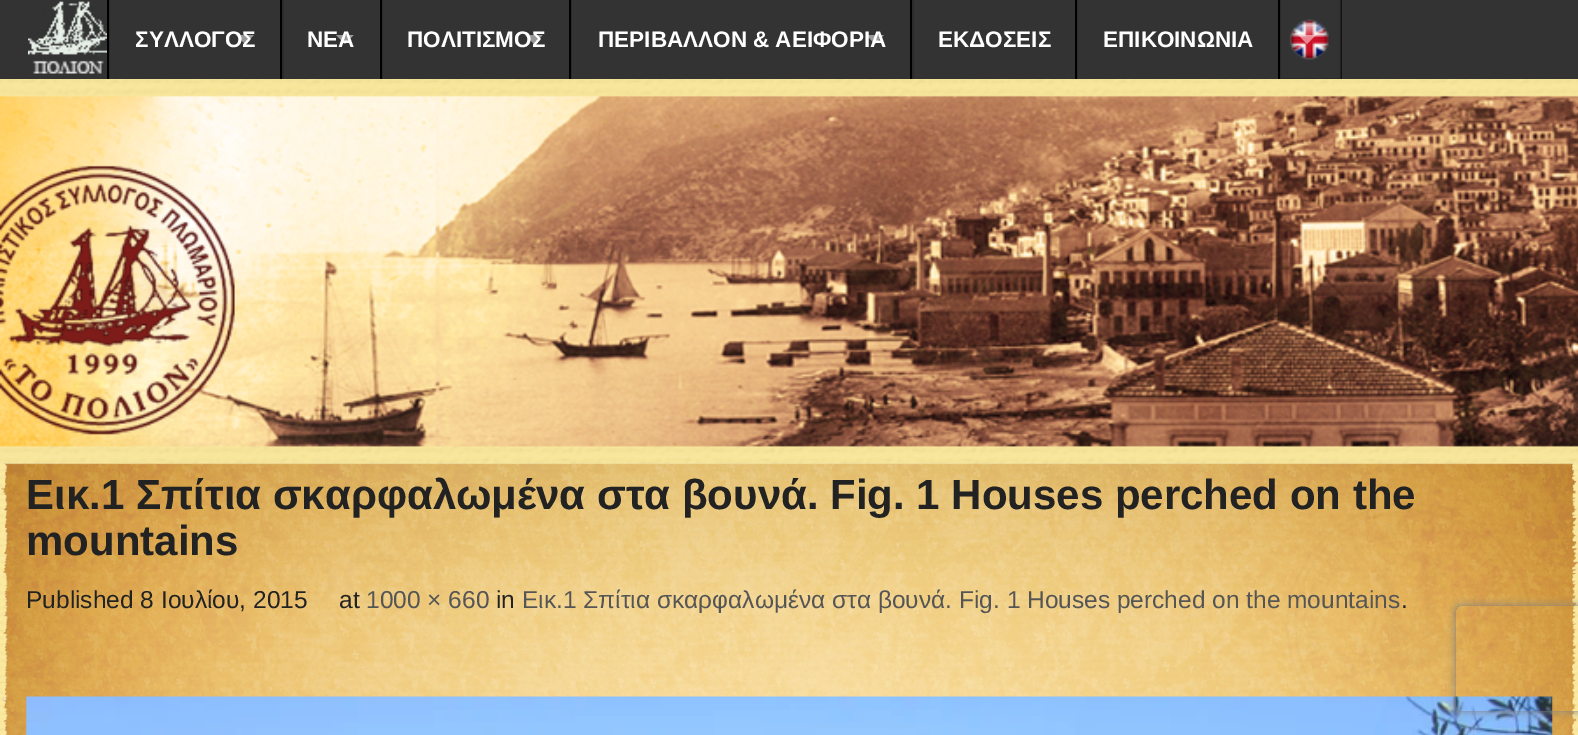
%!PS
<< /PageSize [1578 735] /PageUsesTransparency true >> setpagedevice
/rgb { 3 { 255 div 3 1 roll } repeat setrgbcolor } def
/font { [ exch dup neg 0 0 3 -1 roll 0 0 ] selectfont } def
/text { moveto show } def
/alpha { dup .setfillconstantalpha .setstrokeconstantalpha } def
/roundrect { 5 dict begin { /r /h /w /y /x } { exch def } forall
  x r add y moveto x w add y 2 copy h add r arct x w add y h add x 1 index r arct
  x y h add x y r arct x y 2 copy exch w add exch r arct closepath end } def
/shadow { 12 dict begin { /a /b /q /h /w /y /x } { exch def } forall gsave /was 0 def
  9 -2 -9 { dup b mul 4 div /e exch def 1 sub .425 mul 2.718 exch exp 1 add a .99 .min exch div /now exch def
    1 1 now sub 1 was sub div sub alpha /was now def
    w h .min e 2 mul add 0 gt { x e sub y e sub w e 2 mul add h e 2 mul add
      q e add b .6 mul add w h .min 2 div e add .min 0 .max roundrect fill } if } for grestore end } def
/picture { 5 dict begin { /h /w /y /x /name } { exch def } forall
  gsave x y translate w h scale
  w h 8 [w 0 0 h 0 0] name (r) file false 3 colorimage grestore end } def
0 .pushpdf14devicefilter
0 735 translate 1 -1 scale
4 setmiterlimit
255 255 255 rgb
0 0 1578 735 rectfill
241 241 241 rgb
0 79 1578 385 rectfill
(img_01.rgb) 0 79 1578 385 picture
51 51 51 rgb
0 0 1578 79 rectfill
(img_02.rgb) 28 1 79 73 picture
17 17 17 rgb
1281 0 61 79 rectfill
43 43 43 rgb
109 0 1 79 rectfill
0 0 0 rgb
107 0 2 79 rectfill
43 43 43 rgb
282 0 2 79 rectfill
0 0 0 rgb
280 0 2 79 rectfill
43 43 43 rgb
382 0 1 79 rectfill
0 0 0 rgb
380 0 2 79 rectfill
43 43 43 rgb
571 0 1 79 rectfill
0 0 0 rgb
569 0 2 79 rectfill
43 43 43 rgb
912 0 2 79 rectfill
0 0 0 rgb
910 0 2 79 rectfill
43 43 43 rgb
1077 0 1 79 rectfill
0 0 0 rgb
1075 0 2 79 rectfill
43 43 43 rgb
1280 0 1 79 rectfill
0 0 0 rgb
1278 0 2 79 rectfill
(img_03.rgb) 1281 0 60 79 picture
0.5 alpha
255 255 255 rgb
1298.5 35 moveto 17.5 0 rlineto -9 9 rlineto closepath fill
1 alpha
(img_04.rgb) 0 463 1578 272 picture
(img_05.rgb) 1 463 1577 272 picture
(img_06.rgb) 26 696 1527 39 picture
gsave
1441 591 moveto 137 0 rlineto 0 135 rlineto -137 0 rlineto closepath 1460 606 moveto 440 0 rlineto 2 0 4 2 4 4 rcurveto 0 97 rlineto 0 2 -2 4 -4 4 rcurveto -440 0 rlineto -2 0 -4 -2 -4 -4 rcurveto 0 -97 rlineto 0 -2 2 -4 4 -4 rcurveto closepath eoclip newpath
128 128 128 rgb
1456 606 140 105 4 4.5 1 shadow
grestore
/LiberationSans-Bold 22.5 font
(ΣΥΛΛΟΓΟΣ) 135 47 text
0.5 alpha
236 35 moveto 18 0 rlineto -9 9 rlineto closepath fill
1 alpha
(ΝΕΑ) 307 47 text
0.5 alpha
336 35 moveto 17.5 0 rlineto -8.5 9 rlineto closepath fill
1 alpha
(ΠΟΛΙΤΙΣΜΟΣ) 407 47 text
0.5 alpha
525 35 moveto 17.5 0 rlineto -8.5 9 rlineto closepath fill
1 alpha
(ΠΕΡΙΒΑΛΛΟΝ & ΑΕΙΦΟΡΙΑ) 598 47 text
0.5 alpha
866 35 moveto 18 0 rlineto -9 9 rlineto closepath fill
1 alpha
(ΕΚΔΟΣΕΙΣ) 938 47 text
(ΕΠΙΚΟΙΝΩΝΙΑ) 1103 47 text
/LiberationSans-Bold 42 font
34 34 34 rgb
(Εικ.1 Σπίτια σκαρφαλωμένα στα βουνά. Fig. 1 Houses perched on the) 26 509 text
(mountains) 26 555 text
/LiberationSans-Regular 24.5 font
(Published 8 Ιουλίου, 2015) 26 608 text
(at) 339 608 text
85 85 85 rgb
(1000 × 660) 366 608 text
34 34 34 rgb
(in) 496 608 text
85 85 85 rgb
(Εικ.1 Σπίτια σκαρφαλωμένα στα βουνά. Fig. 1 Houses perched on the mountains) 522 608 text
34 34 34 rgb
(.) 1401 608 text
.poppdf14devicefilter showpage
